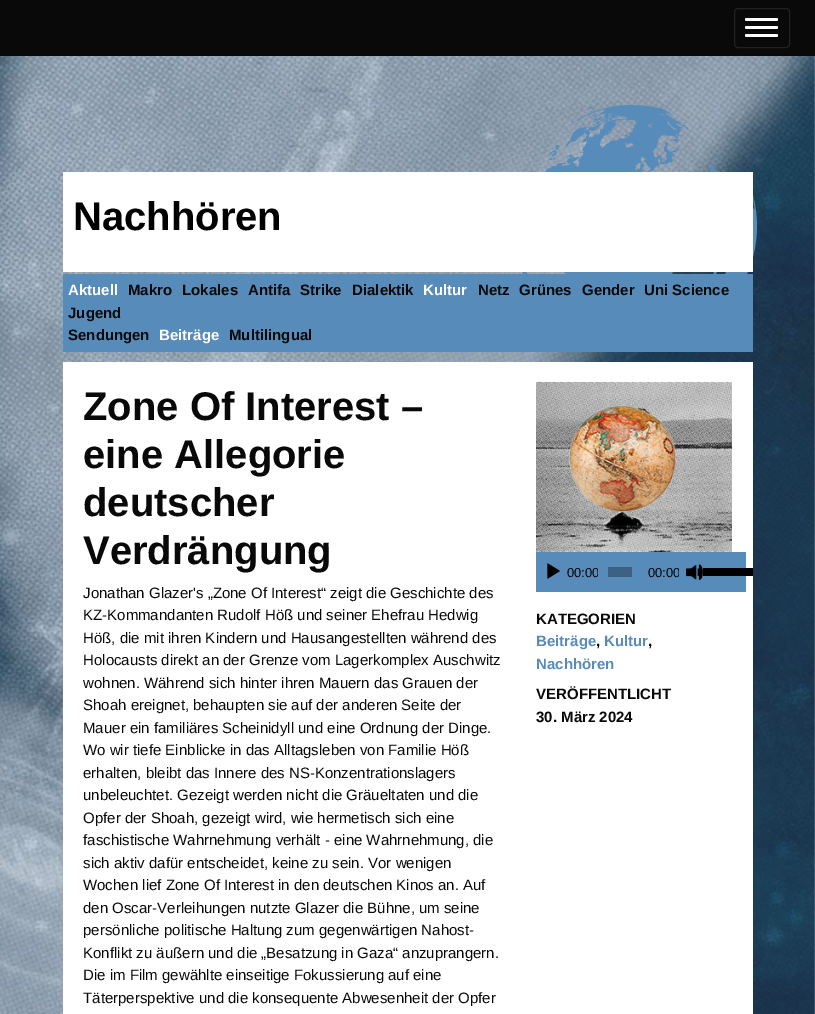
%!PS
<< /PageSize [815 1014] >> setpagedevice
/rgb { 3 { 255 div 3 1 roll } repeat setrgbcolor } def
/font { [ exch dup neg 0 0 3 -1 roll 0 0 ] selectfont } def
/text { moveto show } def
/roundrect { 5 dict begin { /r /h /w /y /x } { exch def } forall
  x r add y moveto x w add y 2 copy h add r arct x w add y h add x 1 index r arct
  x y h add x y r arct x y 2 copy exch w add exch r arct closepath end } def
/picture { 5 dict begin { /h /w /y /x /name } { exch def } forall
  gsave x y translate w h scale
  w h 8 [w 0 0 h 0 0] name (r) file false 3 colorimage grestore end } def
0 1014 translate 1 -1 scale
4 setmiterlimit
255 255 255 rgb
0 0 815 1014 rectfill
(img_01.rgb) 0 56 815 958 picture
9 9 9 rgb
0 0 815 56 rectfill
34 34 34 rgb
734.5 8.5 55 39 3.5 roundrect stroke
255 255 255 rgb
745 18 33 3 1.5 roundrect fill
745 26 33 3 1.5 roundrect fill
745 34 33 3 1.5 roundrect fill
(img_02.rgb) 522 105 235 169 picture
63 172 690 100 rectfill
87 139 186 rgb
63 274 690 78 rectfill
255 255 255 rgb
63 362 690 652 rectfill
(img_03.rgb) 536 382 196 170 picture
87 139 186 rgb
536 552 210 40 rectfill
(img_04.rgb) 547 563 13 16 picture
61 97 130 rgb
608 567 24 10 rectfill
(img_05.rgb) 686 564 17 16 picture
0 0 0 rgb
703 568 50 8 rectfill
/LiberationSans-Bold 40 font
(Nachhören) 73 230 text
/LiberationSans-Bold 15 font
255 255 255 rgb
(Aktuell) 68 295 text
9 9 9 rgb
(Makro) 128 295 text
(Lokales) 182 295 text
(Antifa) 248 295 text
(Strike) 300 295 text
(Dialektik) 352 295 text
255 255 255 rgb
(Kultur) 423 295 text
9 9 9 rgb
(Netz) 478 295 text
(Grünes) 519 295 text
(Gender) 582 295 text
(Uni Science) 644 295 text
(Jugend) 68 318 text
(Sendungen) 68 340 text
255 255 255 rgb
(Beiträge) 159 340 text
9 9 9 rgb
(Multilingual) 229 340 text
/LiberationSans-Bold 40 font
(Zone Of Interest –) 83 420 text
(eine Allegorie) 83 468 text
(deutscher) 83 516 text
(Verdrängung) 83 564 text
/LiberationSans-Regular 15 font
(Jonathan Glazer's „Zone Of Interest“ zeigt die Geschichte des) 83 598 text
(KZ-Kommandanten Rudolf Höß und seiner Ehefrau Hedwig) 83 620 text
(Höß, die mit ihren Kindern und Hausangestellten während des) 83 643 text
(Holocausts direkt an der Grenze vom Lagerkomplex Auschwitz) 83 665 text
(wohnen. Während sich hinter ihren Mauern das Grauen der) 83 688 text
(Shoah ereignet, behaupten sie auf der anderen Seite der) 83 710 text
(Mauer ein familiäres Scheinidyll und eine Ordnung der Dinge.) 83 733 text
(Wo wir tiefe Einblicke in das Alltagsleben von Familie Höß) 83 755 text
(erhalten, bleibt das Innere des NS-Konzentrationslagers) 83 778 text
(unbeleuchtet. Gezeigt werden nicht die Gräueltaten und die) 83 800 text
(Opfer der Shoah, gezeigt wird, wie hermetisch sich eine) 83 823 text
(faschistische Wahrnehmung verhält - eine Wahrnehmung, die) 83 845 text
(sich aktiv dafür entscheidet, keine zu sein. Vor wenigen) 83 868 text
(Wochen lief Zone Of Interest in den deutschen Kinos an. Auf) 83 890 text
(den Oscar-Verleihungen nutzte Glazer die Bühne, um seine) 83 913 text
(persönliche politische Haltung zum gegenwärtigen Nahost-) 83 935 text
(Konflikt zu äußern und die „Besatzung in Gaza“ anzuprangern.) 83 958 text
(Die im Film gewählte einseitige Fokussierung auf eine) 83 980 text
(Täterperspektive und die konsequente Abwesenheit der Opfer) 83 1003 text
gsave
561 552 37 40 rectclip
/LiberationSans-Regular 13 font
0 0 0 rgb
(00:00) 567 577 text
grestore
gsave
642 552 37 40 rectclip
/LiberationSans-Regular 13 font
0 0 0 rgb
(00:00) 648 577 text
grestore
/LiberationSans-Bold 15 font
(KATEGORIEN) 536 624 text
87 139 186 rgb
(Beiträge) 536 646 text
9 9 9 rgb
(,) 596 646 text
87 139 186 rgb
(Kultur) 604 646 text
9 9 9 rgb
(,) 648 646 text
87 139 186 rgb
(Nachhören) 536 669 text
9 9 9 rgb
(VERÖFFENTLICHT) 536 699 text
(30. März 2024) 536 722 text
showpage
